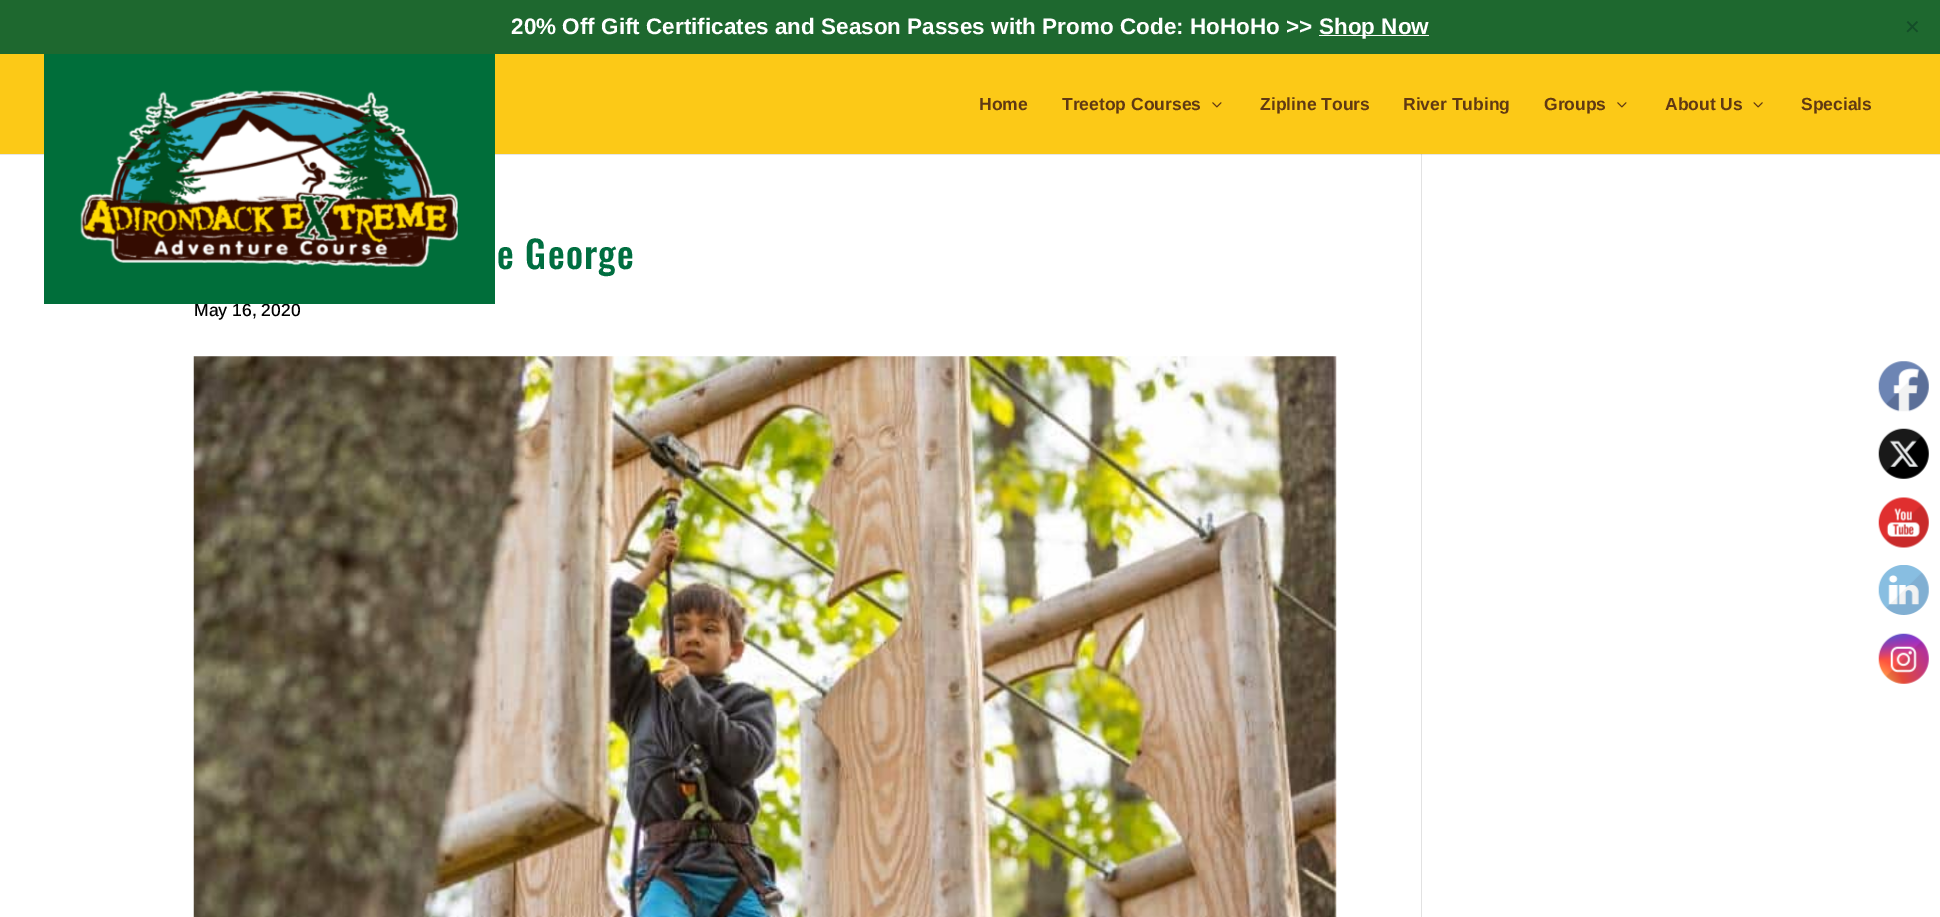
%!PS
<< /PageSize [1940 917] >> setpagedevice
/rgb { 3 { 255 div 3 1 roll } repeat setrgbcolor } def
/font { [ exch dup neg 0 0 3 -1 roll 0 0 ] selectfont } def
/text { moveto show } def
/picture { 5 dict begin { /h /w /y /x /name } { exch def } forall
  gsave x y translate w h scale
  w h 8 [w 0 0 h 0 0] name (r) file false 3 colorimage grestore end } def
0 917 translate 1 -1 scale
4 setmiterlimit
255 255 255 rgb
0 0 1940 917 rectfill
230 230 230 rgb
0 154 1940 1 rectfill
252 201 23 rgb
0 54 1940 100 rectfill
30 104 47 rgb
0 0 1940 54 rectfill
252 252 252 rgb
1319 35 110 1 rectfill
(img_02.rgb) 1212 102 10 6 picture
(img_02.rgb) 1617 102 10 6 picture
(img_03.rgb) 1753 102 10 6 picture
(img_04.rgb) 193 356 1144 561 picture
226 226 226 rgb
1421 154 1 763 rectfill
203 203 203 rgb
1421 154 1 1 rectfill
(img_05.rgb) 1878 361 51 51 picture
(img_06.rgb) 1878 428 51 51 picture
(img_07.rgb) 1878 497 51 51 picture
(img_08.rgb) 1878 565 51 50 picture
(img_09.rgb) 1878 633 51 51 picture
/Arimo-Bold 22.5 font
255 255 255 rgb
(20% Off Gift Certificates and Season Passes with Promo Code: HoHoHo >>) 511 34 text
(Shop Now) 1319 34 text
/DejaVuSans-Regular 20 font
20 77 41 rgb
(✕) 1904 34 text
/Arimo-Bold 17.5 font
96 57 19 rgb
(Home) 979 110 text
(Treetop Courses) 1062 110 text
(Zipline Tours) 1260 110 text
(River Tubing) 1403 110 text
(Groups) 1544 110 text
(About Us) 1665 110 text
(Specials) 1801 110 text
/Oswald-Medium 37.5 font
0 110 64 rgb
497 269 moveto 1.25 0 (e George) ashow
/Arimo-Medium 17.5 font
0 0 0 rgb
(May 16, 2020) 194 316 text
0 110 58 rgb
44 54 451 250 rectfill
(img_01.rgb) 80 90 378 177 picture
showpage
